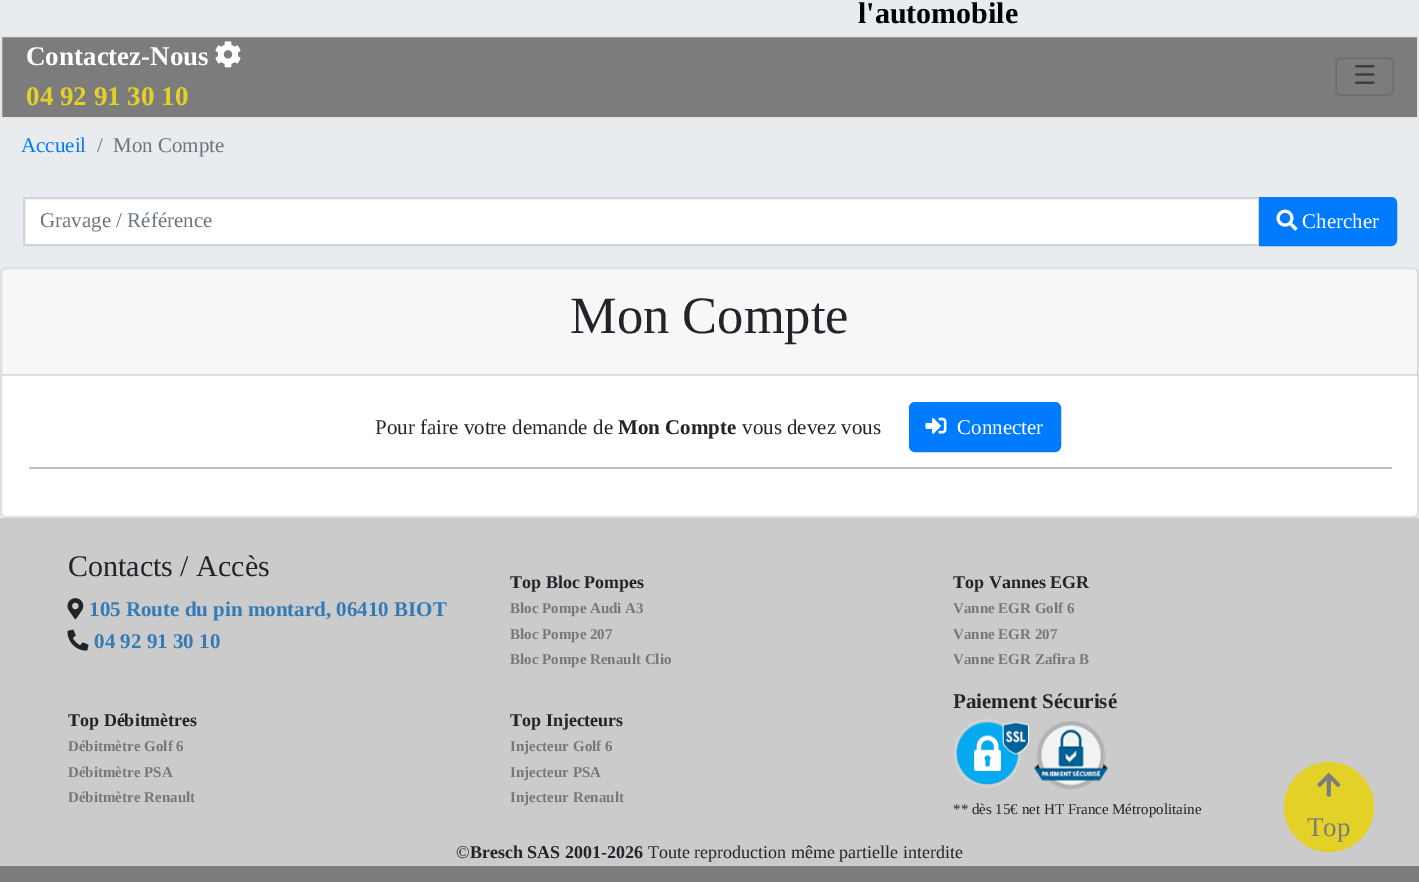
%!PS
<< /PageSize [1419 882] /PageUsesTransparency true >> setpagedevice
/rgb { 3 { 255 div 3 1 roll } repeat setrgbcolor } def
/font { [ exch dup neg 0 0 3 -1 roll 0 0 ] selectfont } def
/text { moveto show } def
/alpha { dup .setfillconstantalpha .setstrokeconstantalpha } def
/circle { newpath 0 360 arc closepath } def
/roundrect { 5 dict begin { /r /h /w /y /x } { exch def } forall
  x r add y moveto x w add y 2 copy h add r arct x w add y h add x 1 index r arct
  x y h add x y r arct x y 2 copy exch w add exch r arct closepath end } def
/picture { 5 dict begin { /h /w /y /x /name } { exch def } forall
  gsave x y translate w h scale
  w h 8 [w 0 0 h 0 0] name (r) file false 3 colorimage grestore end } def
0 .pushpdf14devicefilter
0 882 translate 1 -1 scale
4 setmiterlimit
233 236 239 rgb
0 0 1419 882 rectfill
125 124 124 rgb
1 36 moveto 1417 0 rlineto 0 82 rlineto -1417 0 rlineto closepath gsave fill grestore
231 231 231 rgb
2 setlinewidth
stroke
(img_01.rgb) 215 41 26 27 picture
113 112 112 rgb
1336 58 57 37 5 roundrect stroke
255 255 255 rgb
24 198 moveto 1235 0 rlineto 0 47 rlineto -1235 0 rlineto closepath gsave fill grestore
206 212 218 rgb
stroke
0 123 255 rgb
1260 198 moveto 131 0 rlineto 3 0 5 2 5 5 rcurveto 0 37 rlineto 0 3 -2 5 -5 5 rcurveto -131 0 rlineto closepath gsave fill grestore
stroke
(img_02.rgb) 1276 209 22 22 picture
255 255 255 rgb
0 267 1419 251 6 roundrect fill
0.12 alpha
0 0 0 rgb
1 268 1417 249 5 roundrect stroke
0.03 alpha
2 269 1416 106 rectfill
0.12 alpha
2 374 1416 2 rectfill
1 alpha
192 192 192 rgb
29 467 1363 2 rectfill
0 123 255 rgb
910 403 150 48 5 roundrect gsave fill grestore
stroke
(img_03.rgb) 925 417 22 17 picture
203 203 203 rgb
0 518 1419 348 rectfill
(img_04.rgb) 67 598 17 22 picture
(img_05.rgb) 67 629 22 22 picture
(img_06.rgb) 954 719 75 68 picture
(img_07.rgb) 1034 721 74 69 picture
124 124 124 rgb
0 866 1419 16 rectfill
227 209 39 rgb
1329 807 45 circle fill
(img_08.rgb) 1317 773 24 24 picture
/LiberationSerif-Bold 30 font
0 0 0 rgb
(l'automobile) 858 23 text
/LiberationSerif-Bold 27 font
255 255 255 rgb
(Contactez-Nous) 26 65 text
227 209 39 rgb
(04 92 91 30 10) 26 105 text
/DejaVuSans-Regular 26 font
63 62 62 rgb
(☰) 1353 84 text
/LiberationSerif-Regular 21 font
0 123 255 rgb
(Accueil) 21 152 text
108 117 125 rgb
(/) 97 152 text
(Mon Compte) 113 152 text
gsave
41 210 1182 24 rectclip
(Gravage / Référence) 40 227 text
grestore
255 255 255 rgb
(Chercher) 1302 228 text
/LiberationSerif-Regular 52.5 font
33 37 41 rgb
(Mon Compte) 570 333 text
/LiberationSerif-Regular 21 font
(Pour faire votre demande de) 375 434 text
/LiberationSerif-Bold 21 font
(Mon Compte) 618 434 text
/LiberationSerif-Regular 21 font
(vous devez vous) 742 434 text
255 255 255 rgb
(Connecter) 957 434 text
/LiberationSerif-Regular 30 font
33 37 41 rgb
(Contacts / Accès) 68 576 text
/LiberationSerif-Bold 21 font
51 122 183 rgb
(105 Route du pin montard, 06410 BIOT) 89 616 text
(04 92 91 30 10) 94 648 text
/LiberationSerif-Bold 18 font
33 37 41 rgb
(Top Bloc Pompes) 510 588 text
/LiberationSerif-Bold 15 font
119 119 119 rgb
(Bloc Pompe Audi A3) 510 613 text
(Bloc Pompe 207) 510 639 text
(Bloc Pompe Renault Clio) 510 664 text
/LiberationSerif-Bold 18 font
33 37 41 rgb
(Top Vannes EGR) 953 588 text
/LiberationSerif-Bold 15 font
119 119 119 rgb
(Vanne EGR Golf 6) 953 613 text
(Vanne EGR 207) 953 639 text
(Vanne EGR Zafira B) 953 664 text
/LiberationSerif-Bold 18 font
33 37 41 rgb
(Top Débitmètres) 68 726 text
/LiberationSerif-Bold 15 font
119 119 119 rgb
(Débitmètre Golf 6) 68 751 text
(Débitmètre PSA) 68 777 text
(Débitmètre Renault) 68 802 text
/LiberationSerif-Bold 18 font
33 37 41 rgb
(Top Injecteurs) 510 726 text
/LiberationSerif-Bold 15 font
119 119 119 rgb
(Injecteur Golf 6) 510 751 text
(Injecteur PSA) 510 777 text
(Injecteur Renault) 510 802 text
/LiberationSerif-Bold 21 font
33 37 41 rgb
(Paiement Sécurisé) 953 708 text
/LiberationSerif-Regular 15 font
(** dès 15€ net HT France Métropolitaine) 953 814 text
/LiberationSerif-Regular 18 font
(©) 456 858 text
/LiberationSerif-Bold 18 font
(Bresch SAS 2001-2026) 470 858 text
/LiberationSerif-Regular 18 font
(Toute reproduction même partielle interdite) 648 858 text
/LiberationSerif-Regular 27 font
125 124 124 rgb
(Top) 1307 836 text
.poppdf14devicefilter showpage
